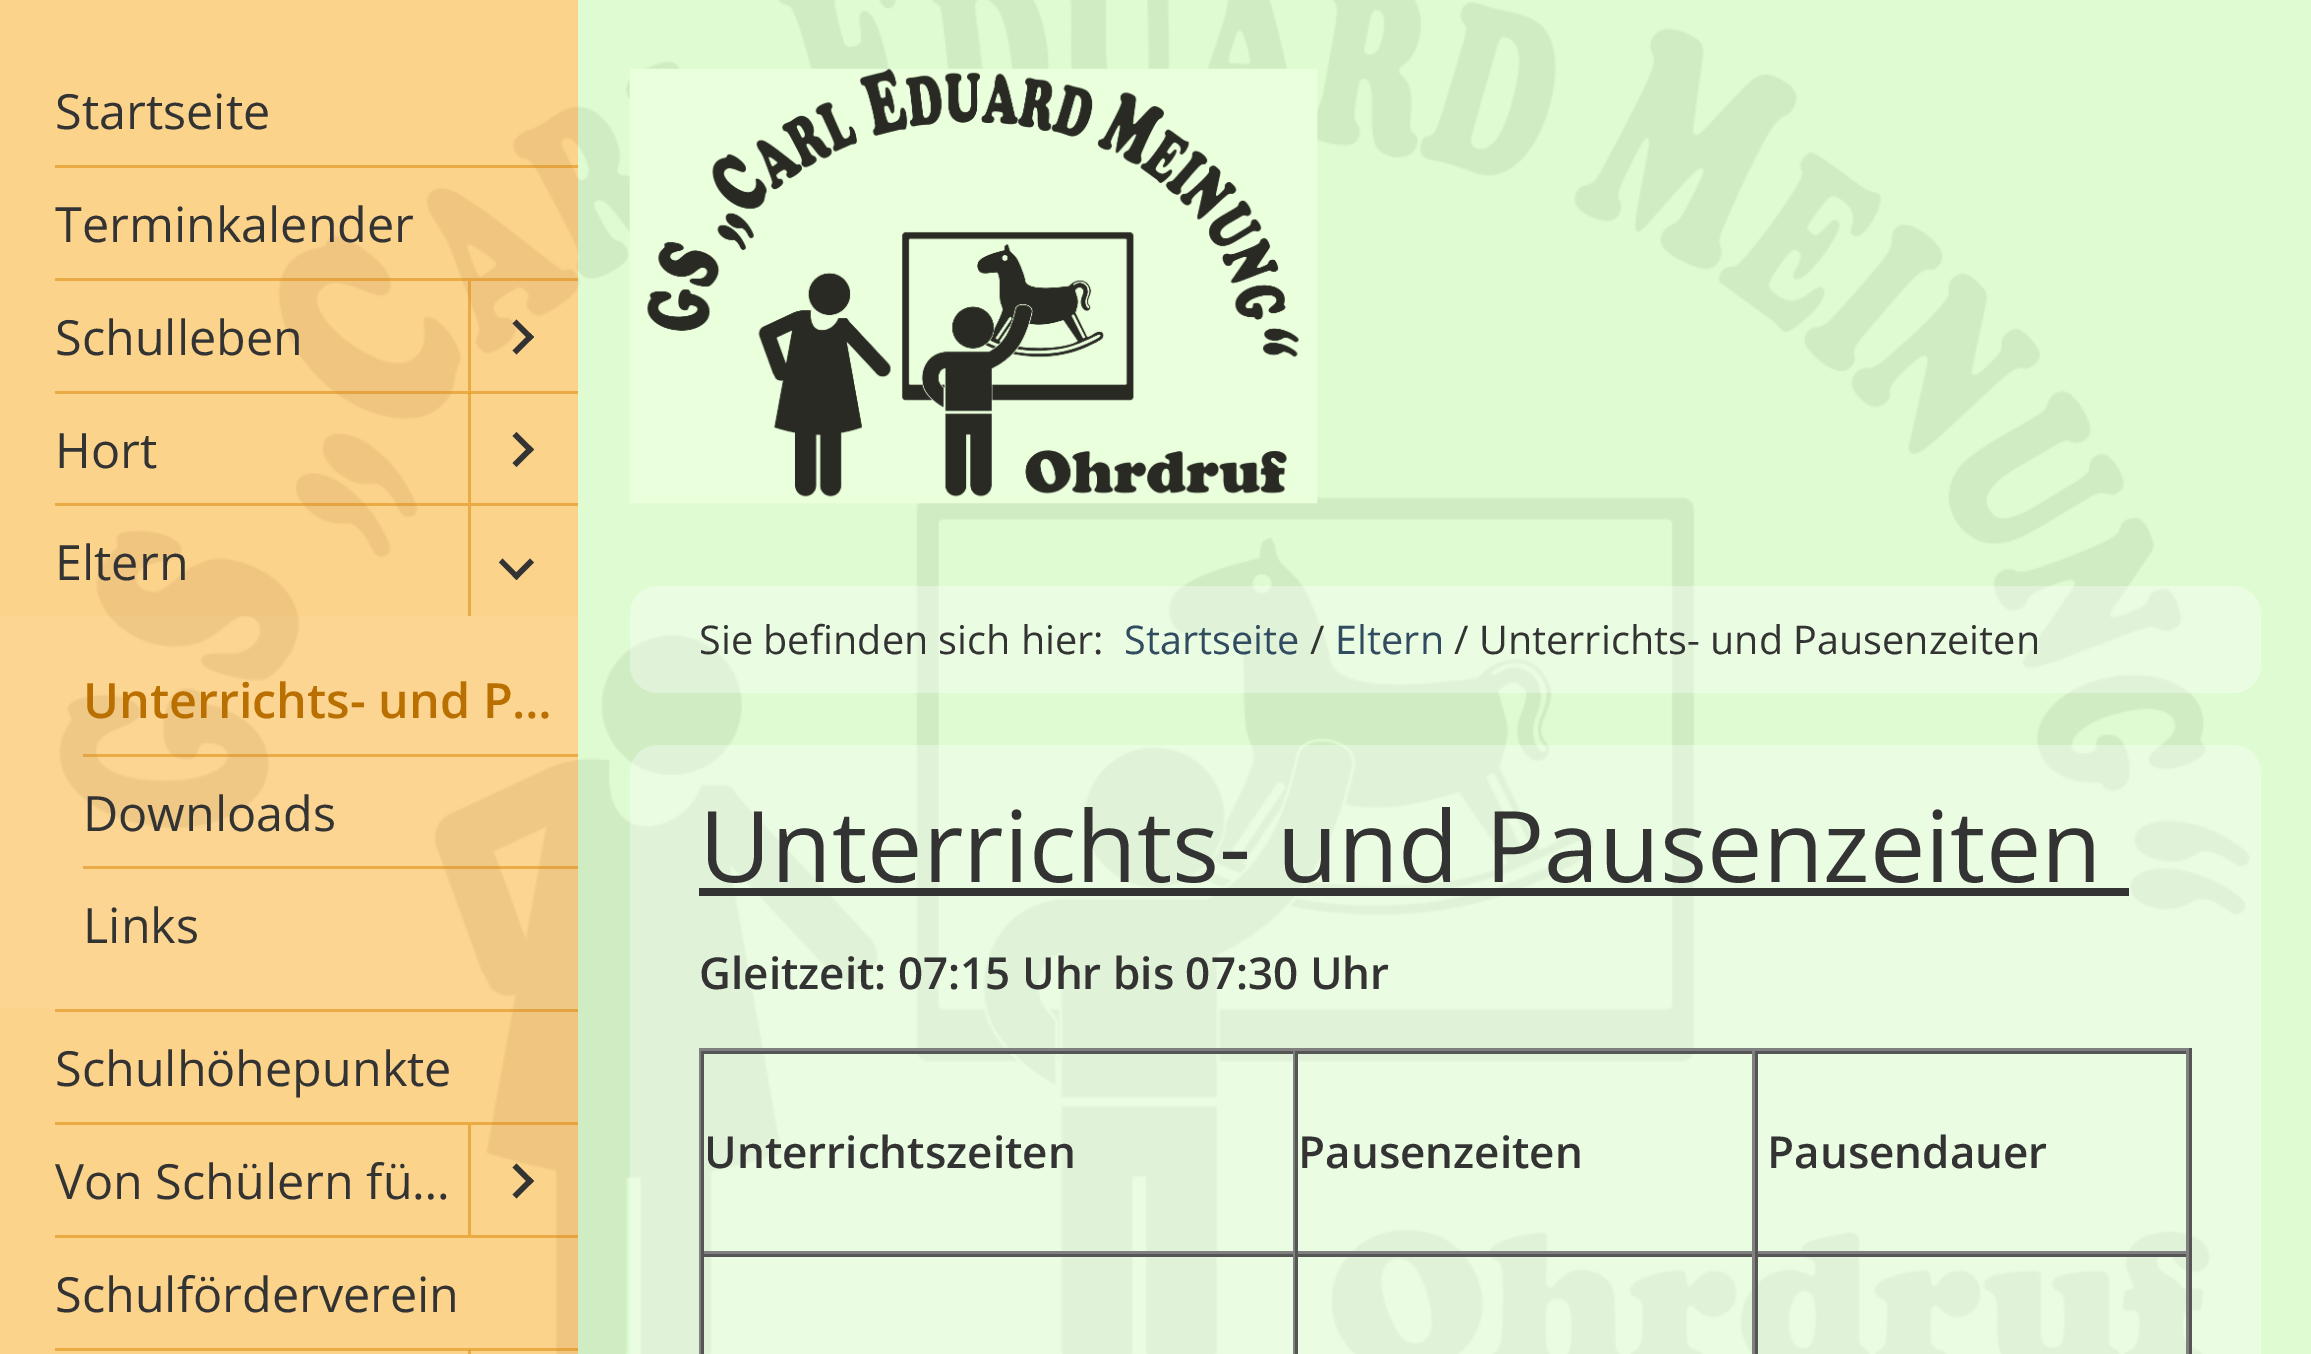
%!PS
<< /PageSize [2311 1354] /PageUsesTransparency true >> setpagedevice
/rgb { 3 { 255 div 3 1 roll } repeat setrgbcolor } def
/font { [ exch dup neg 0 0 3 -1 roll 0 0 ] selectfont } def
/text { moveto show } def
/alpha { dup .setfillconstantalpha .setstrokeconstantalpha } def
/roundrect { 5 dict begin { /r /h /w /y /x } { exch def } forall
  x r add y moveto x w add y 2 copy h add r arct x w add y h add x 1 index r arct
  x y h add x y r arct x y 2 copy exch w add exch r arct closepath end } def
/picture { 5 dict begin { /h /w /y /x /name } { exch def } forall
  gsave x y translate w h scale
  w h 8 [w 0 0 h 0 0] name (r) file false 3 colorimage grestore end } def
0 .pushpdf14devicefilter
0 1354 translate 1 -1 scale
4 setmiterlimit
255 255 255 rgb
0 0 2311 1354 rectfill
(img_01.rgb) 0 0 2311 1354 picture
0.63 alpha
255 204 128 rgb
0 0 578 1354 rectfill
0 0 578 1354 rectfill
0.51 alpha
219 132 0 rgb
55 165 523 3 rectfill
55 278 523 3 rectfill
468 281 3 110 rectfill
1 alpha
51 51 51 rgb
512.5 323.5 moveto 4 -4 rlineto 17.5 17.5 rlineto -4 4 rlineto closepath fill
512.5 350.5 moveto 17.5 -17.5 rlineto 4 4 rlineto -17.5 17.5 rlineto closepath fill
0.51 alpha
219 132 0 rgb
55 391 523 3 rectfill
468 393 3 110 rectfill
1 alpha
51 51 51 rgb
512.5 436 moveto 4 -4 rlineto 17.5 17.5 rlineto -4 4 rlineto closepath fill
512.5 463 moveto 17.5 -17.5 rlineto 4 4 rlineto -17.5 17.5 rlineto closepath fill
0.51 alpha
219 132 0 rgb
55 503 523 3 rectfill
1 alpha
235 171 68 rgb
468 506 3 110 rectfill
51 51 51 rgb
530 558.5 moveto 4 4 rlineto -17.5 17.5 rlineto -4 -4 rlineto closepath fill
502.5 558.5 moveto 17.5 17.5 rlineto -3.5 4 rlineto -17.5 -17.5 rlineto closepath fill
0.05 alpha
255 255 255 rgb
0 616 578 393 rectfill
0.51 alpha
219 132 0 rgb
83 754 495 3 rectfill
83 866 495 3 rectfill
55 1009 523 3 rectfill
55 1122 523 3 rectfill
1 alpha
235 171 68 rgb
468 1125 3 110 rectfill
51 51 51 rgb
512.5 1167.5 moveto 4 -4 rlineto 17.5 17.5 rlineto -4 4 rlineto closepath fill
512.5 1194.5 moveto 17.5 -17.5 rlineto 4 4 rlineto -17.5 17.5 rlineto closepath fill
0.51 alpha
219 132 0 rgb
55 1235 523 3 rectfill
55 1348 523 3 rectfill
468 1350 3 4 rectfill
0.84 alpha
222 251 208 rgb
578 0 1733 1354 rectfill
1 alpha
(img_02.rgb) 629 68 689 436 picture
0.35 alpha
255 255 255 rgb
630 586 1631 107 28 roundrect fill
630 745 1631 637 28 roundrect fill
1 alpha
51 51 51 rgb
699 888 1430 8 rectfill
128 128 128 rgb
699 1048 1493 3 rectfill
85 85 85 rgb
2189 1048 3 306 rectfill
128 128 128 rgb
699 1048 3 306 rectfill
85 85 85 rgb
701 1051 1488 3 rectfill
128 128 128 rgb
1293 1051 2 203 rectfill
701 1251 594 3 rectfill
85 85 85 rgb
701 1051 3 203 rectfill
128 128 128 rgb
1752 1051 3 203 rectfill
1295 1251 460 3 rectfill
85 85 85 rgb
1295 1051 3 203 rectfill
128 128 128 rgb
2186 1051 3 203 rectfill
1755 1251 434 3 rectfill
85 85 85 rgb
1755 1051 3 203 rectfill
701 1254 1488 3 rectfill
128 128 128 rgb
1293 1254 2 100 rectfill
85 85 85 rgb
701 1254 3 100 rectfill
128 128 128 rgb
1752 1254 3 100 rectfill
85 85 85 rgb
1295 1254 3 100 rectfill
128 128 128 rgb
2186 1254 3 100 rectfill
85 85 85 rgb
1755 1254 3 100 rectfill
/OpenSans-Regular 48.5 font
51 51 51 rgb
(Startseite) 55 129 text
(Terminkalender) 55 242 text
(Schulleben) 55 355 text
(Hort) 55 468 text
(Eltern) 55 580 text
/OpenSans-SemiBold 48.5 font
186 112 0 rgb
(Unterrichts- und P…) 83 718 text
/OpenSans-Regular 48.5 font
51 51 51 rgb
(Downloads) 83 831 text
(Links) 83 943 text
(Schulhöhepunkte) 55 1086 text
(Von Schülern fü…) 55 1199 text
(Schulförderverein) 55 1312 text
/OpenSans-Regular 39.6 font
(Sie befinden sich hier:) 699 654 text
49 76 97 rgb
(Startseite) 1124 654 text
51 51 51 rgb
(/) 1310 654 text
49 76 97 rgb
(Eltern) 1335 654 text
51 51 51 rgb
(/ Unterrichts- und Pausenzeiten) 1454 654 text
/OpenSans-Regular 99 font
(Unterrichts- und Pausenzeiten) 699 882 text
/OpenSans-SemiBold 44 font
(Gleitzeit: 07:15 Uhr bis 07:30 Uhr) 699 989 text
(Unterrichtszeiten) 704 1168 text
(Pausenzeiten) 1298 1168 text
(Pausendauer) 1767 1168 text
.poppdf14devicefilter showpage
